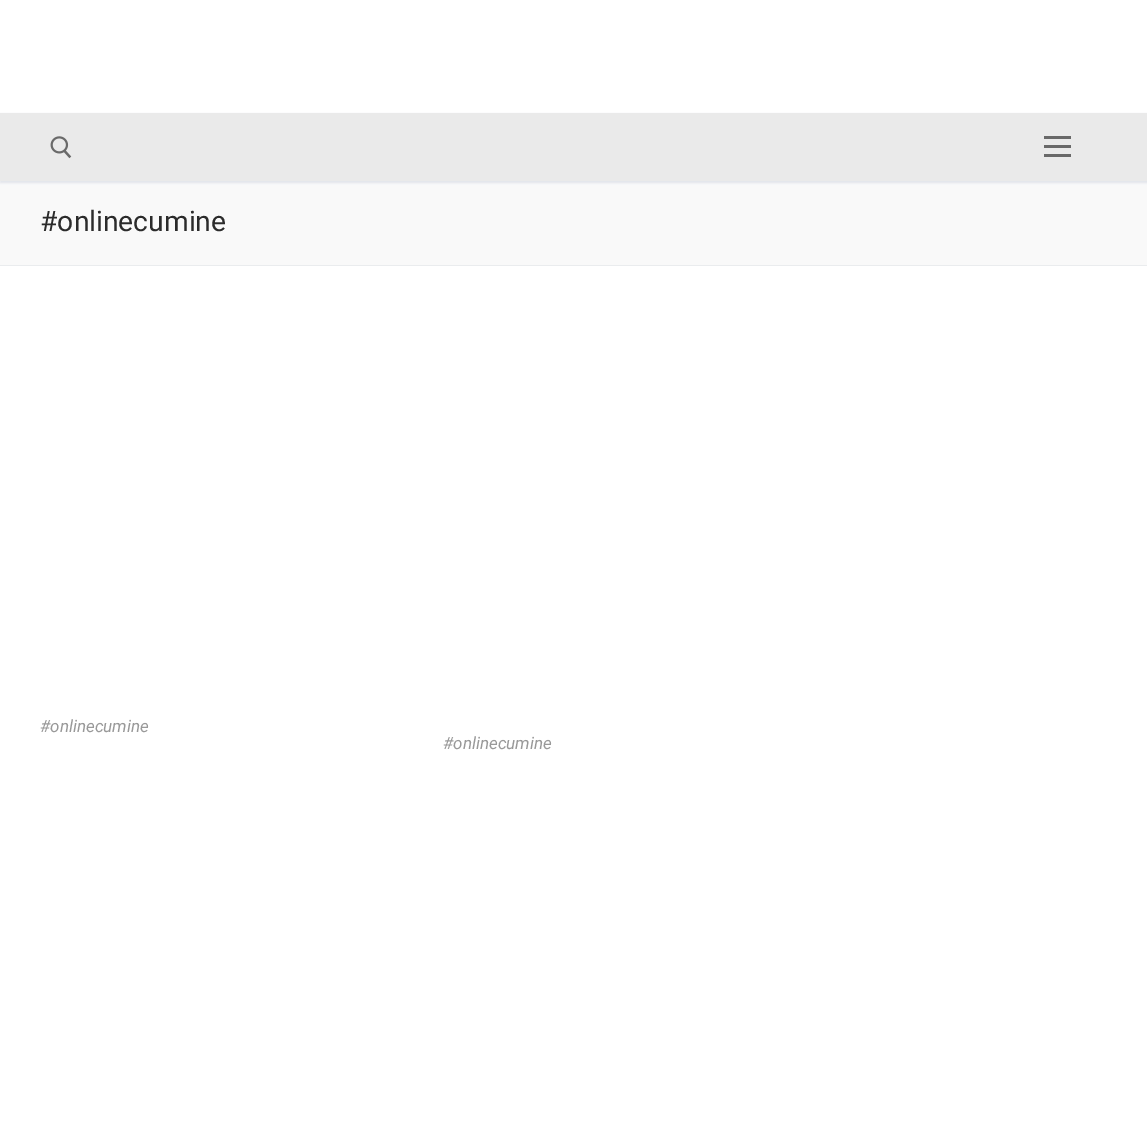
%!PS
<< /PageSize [1147 1137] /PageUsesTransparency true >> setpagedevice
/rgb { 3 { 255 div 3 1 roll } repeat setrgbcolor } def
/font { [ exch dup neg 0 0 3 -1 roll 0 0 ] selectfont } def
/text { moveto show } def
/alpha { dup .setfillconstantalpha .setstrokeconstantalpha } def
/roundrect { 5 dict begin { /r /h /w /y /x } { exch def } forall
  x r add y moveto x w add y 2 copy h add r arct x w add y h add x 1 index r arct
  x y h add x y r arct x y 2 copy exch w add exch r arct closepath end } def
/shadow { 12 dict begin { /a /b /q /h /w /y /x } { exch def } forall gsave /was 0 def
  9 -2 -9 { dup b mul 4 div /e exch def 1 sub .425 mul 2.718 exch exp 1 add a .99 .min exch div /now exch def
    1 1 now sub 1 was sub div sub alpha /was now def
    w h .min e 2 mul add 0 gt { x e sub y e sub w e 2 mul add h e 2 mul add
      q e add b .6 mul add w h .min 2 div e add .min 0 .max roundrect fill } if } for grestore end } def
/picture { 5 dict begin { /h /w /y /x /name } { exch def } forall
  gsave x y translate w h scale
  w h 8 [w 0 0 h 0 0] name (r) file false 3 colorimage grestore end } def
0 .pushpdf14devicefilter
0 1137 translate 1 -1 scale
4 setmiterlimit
255 255 255 rgb
0 0 1147 1137 rectfill
249 249 249 rgb
0 181 1147 84 rectfill
225 229 234 rgb
0 114 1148 69 0 1 1 shadow
234 234 234 rgb
0 113 1147 68 rectfill
(img_01.rgb) 50 136 22 23 picture
105 105 105 rgb
1044 145 27 3 rectfill
1044 136 27 3 rectfill
1044 154 27 3 rectfill
234 236 238 rgb
0 265 1147 1 rectfill
/Roboto-Regular 28.25 font
43 43 43 rgb
(#onlinecumine) 40 231 text
/Roboto-Italic 17 font
153 153 153 rgb
(#onlinecumine) 40 732 text
(#onlinecumine) 443 749 text
.poppdf14devicefilter showpage
